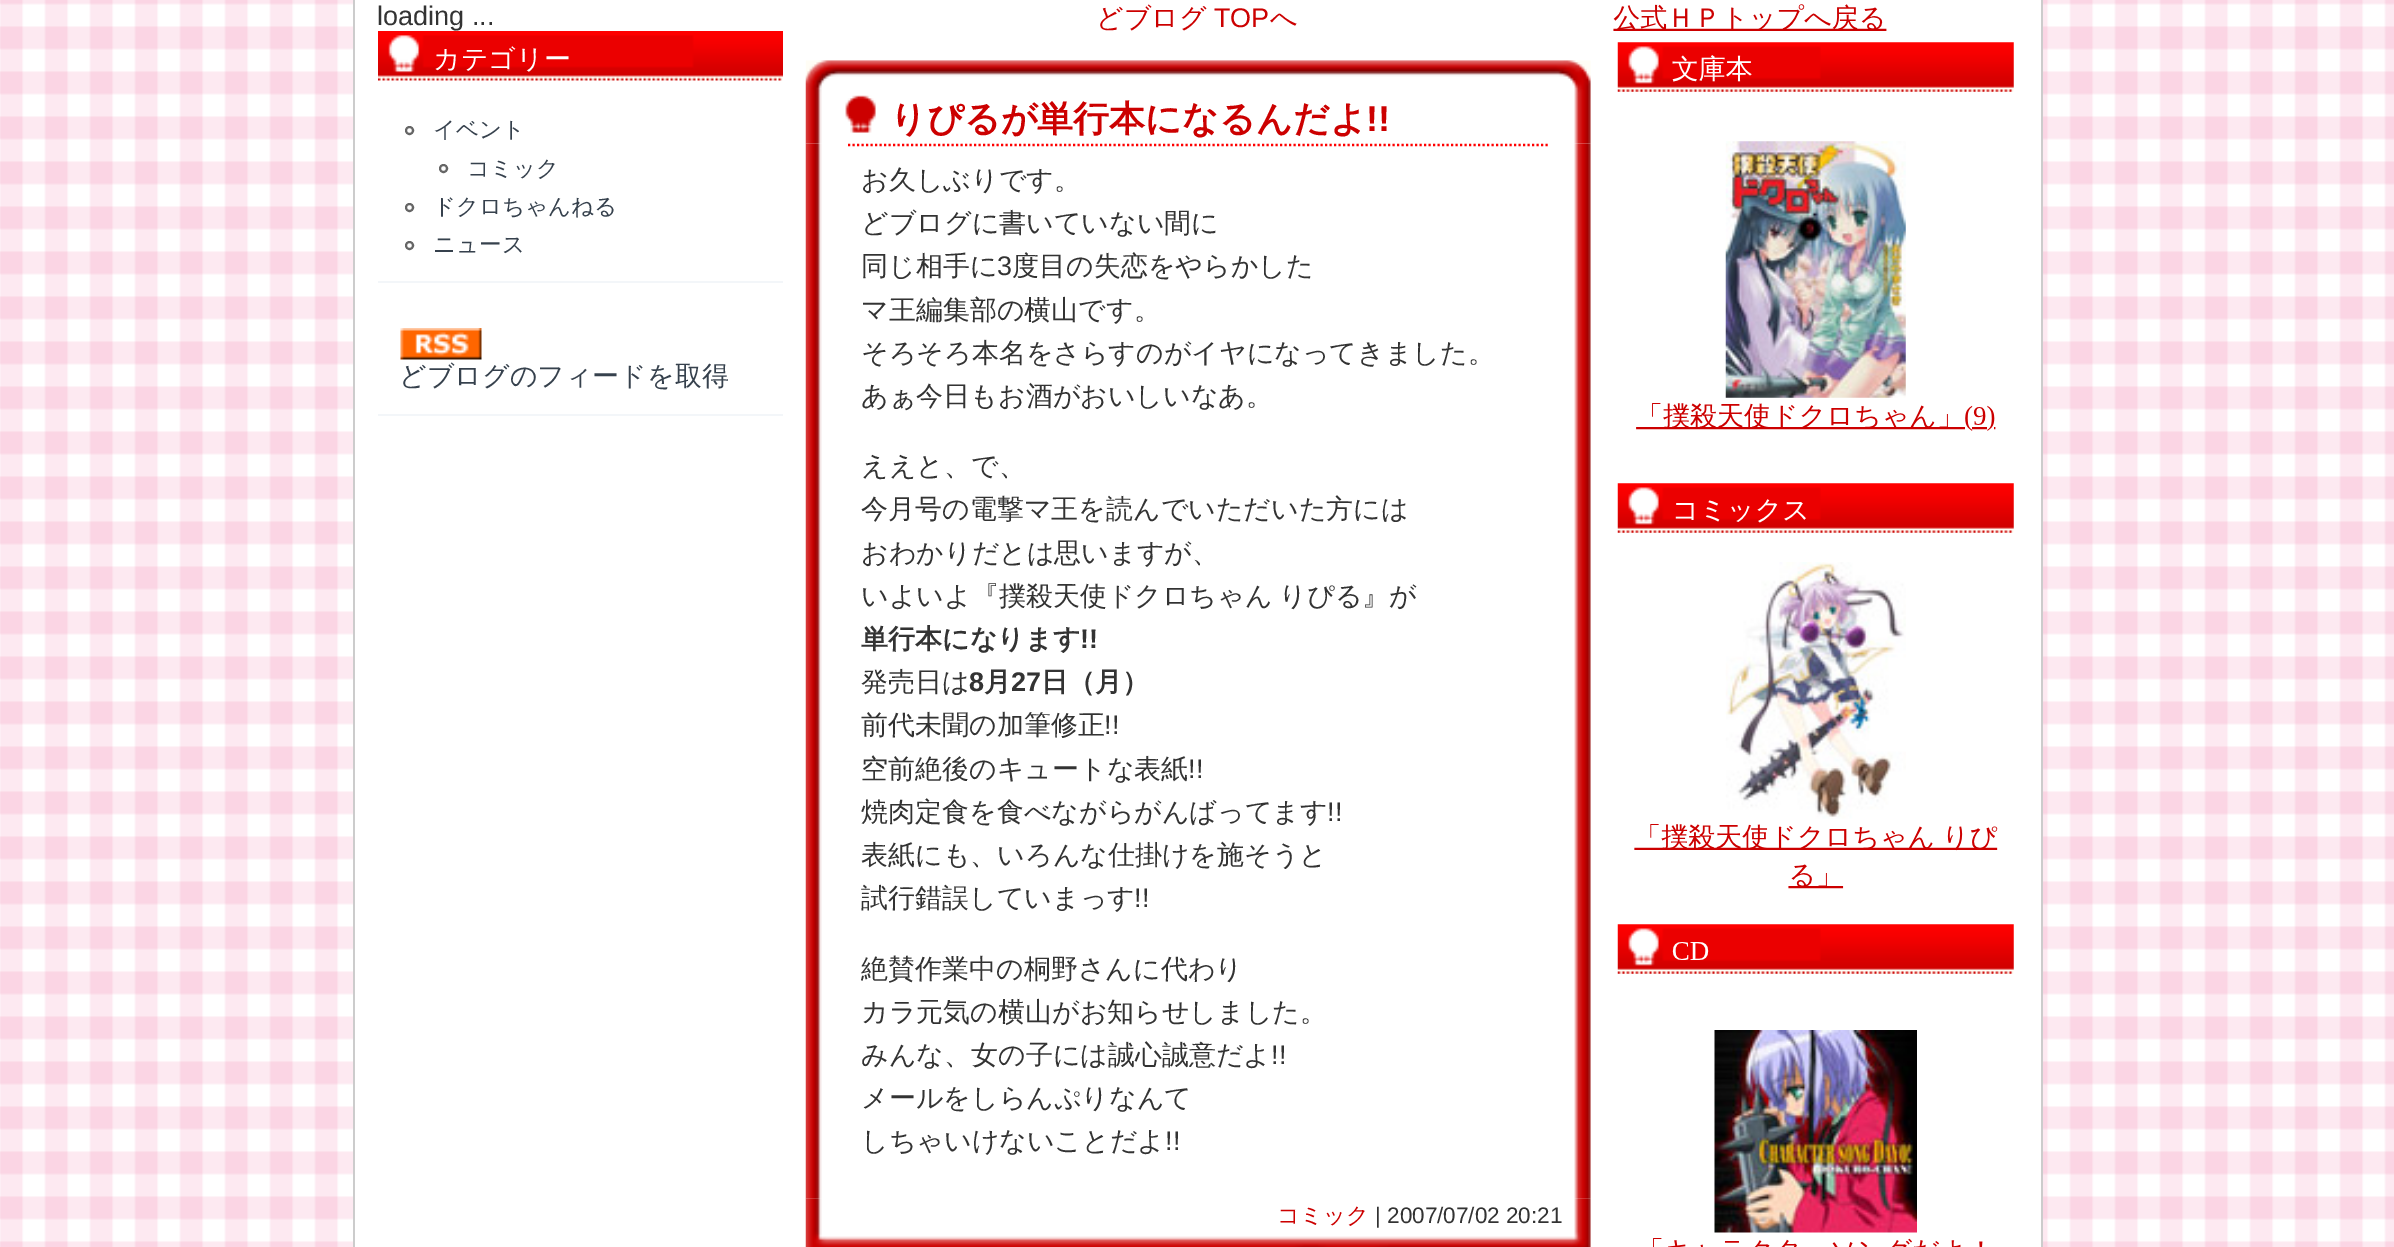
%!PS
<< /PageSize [2394 1247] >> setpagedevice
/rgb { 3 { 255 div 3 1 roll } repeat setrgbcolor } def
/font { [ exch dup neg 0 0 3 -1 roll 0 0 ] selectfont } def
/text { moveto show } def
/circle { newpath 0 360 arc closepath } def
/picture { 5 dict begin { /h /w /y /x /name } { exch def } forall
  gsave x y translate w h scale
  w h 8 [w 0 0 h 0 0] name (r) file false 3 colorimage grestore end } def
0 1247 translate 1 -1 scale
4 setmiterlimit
255 255 255 rgb
0 0 2394 1247 rectfill
(img_01.rgb) 0 0 2394 1247 picture
355 0 1686 1247 rectfill
204 204 204 rgb
2041 0 2 1247 rectfill
353 0 2 1247 rectfill
243 246 249 rgb
378 281 405 2 rectfill
(img_02.rgb) 378 31 405 50 picture
102 102 102 rgb
2 setlinewidth
409.5 130.5 3.5 circle stroke
443.5 168.5 3.5 circle stroke
409.5 207.5 3.5 circle stroke
409.5 245.5 3.5 circle stroke
243 246 249 rgb
378 414 405 2 rectfill
(img_03.rgb) 400 328 82 32 picture
(img_04.rgb) 805 60 786 84 picture
(img_05.rgb) 805 143 786 1056 picture
255 0 0 rgb
2.2 setlinewidth
[2.25 2.25] 0 setdash
848 145 moveto 702 0 rlineto stroke
(img_06.rgb) 805 1198 786 49 picture
(img_07.rgb) 1613 4 401 1243 picture
/LiberationSans-Regular 27 font
51 51 51 rgb
(loading ...) 377 25 text
/WenQuanYiZenHei-Medium 27 font
255 255 255 rgb
(カテゴリー) 433 68 text
/WenQuanYiZenHei-Medium 22.5 font
54 65 77 rgb
(イベント) 433 137 text
(コミック) 467 176 text
(ドクロちゃんねる) 433 214 text
(ニュース) 433 252 text
/WenQuanYiZenHei-Medium 27 font
(どブログのフィードを取得) 399 385 text
204 0 0 rgb
(どブログ) 1096 27 text
/LiberationSans-Regular 27 font
(TOP) 1214 27 text
/WenQuanYiZenHei-Medium 27 font
(へ) 1270 27 text
/WenQuanYiZenHei-Bold 36 font
(りぴるが単行本になるんだよ) 890 131 text
/LiberationSans-Bold 36 font
(!!) 1366 131 text
/WenQuanYiZenHei-Medium 27 font
51 51 51 rgb
(お久しぶりです。) 861 189 text
(どブログに書いていない間に) 861 232 text
(同じ相手に) 861 275 text
/LiberationSans-Regular 27 font
(3) 997 275 text
/WenQuanYiZenHei-Medium 27 font
(度目の失恋をやらかした) 1012 275 text
(マ王編集部の横山です。) 861 319 text
(そろそろ本名をさらすのがイヤになってきました。) 861 362 text
(あぁ今日もお酒がおいしいなあ。) 861 405 text
(ええと、で、) 861 475 text
(今月号の電撃マ王を読んでいただいた方には) 861 518 text
(おわかりだとは思いますが、) 861 562 text
861 605 moveto -1 0 32 (いよいよ『撲殺天使ドクロちゃん りぴる』が) widthshow
/WenQuanYiZenHei-Bold 27 font
(単行本になります) 861 648 text
/LiberationSans-Bold 27 font
(!!) 1080 648 text
/WenQuanYiZenHei-Medium 27 font
(発売日は) 861 691 text
/LiberationSans-Bold 27 font
(8) 969 691 text
/WenQuanYiZenHei-Bold 27 font
(月) 984 691 text
/LiberationSans-Bold 27 font
(27) 1011 691 text
/WenQuanYiZenHei-Bold 27 font
(日（月）) 1041 691 text
/WenQuanYiZenHei-Medium 27 font
(前代未聞の加筆修正) 861 734 text
/LiberationSans-Regular 27 font
(!!) 1104 734 text
/WenQuanYiZenHei-Medium 27 font
(空前絶後のキュートな表紙) 861 778 text
/LiberationSans-Regular 27 font
(!!) 1188 778 text
/WenQuanYiZenHei-Medium 27 font
(焼肉定食を食べながらがんばってます) 861 821 text
/LiberationSans-Regular 27 font
(!!) 1327 821 text
/WenQuanYiZenHei-Medium 27 font
(表紙にも、いろんな仕掛けを施そうと) 861 864 text
(試行錯誤していまっす) 861 907 text
/LiberationSans-Regular 27 font
(!!) 1134 907 text
/WenQuanYiZenHei-Medium 27 font
(絶賛作業中の桐野さんに代わり) 861 978 text
(カラ元気の横山がお知らせしました。) 861 1021 text
(みんな、女の子には誠心誠意だよ) 861 1064 text
/LiberationSans-Regular 27 font
(!!) 1271 1064 text
/WenQuanYiZenHei-Medium 27 font
(メールをしらんぷりなんて) 861 1107 text
(しちゃいけないことだよ) 861 1150 text
/LiberationSans-Regular 27 font
(!!) 1165 1150 text
/WenQuanYiZenHei-Medium 22.5 font
204 0 0 rgb
(コミック) 1277 1223 text
/LiberationSans-Regular 22.5 font
51 51 51 rgb
(| 2007/07/02 20:21) 1375 1223 text
showpage
